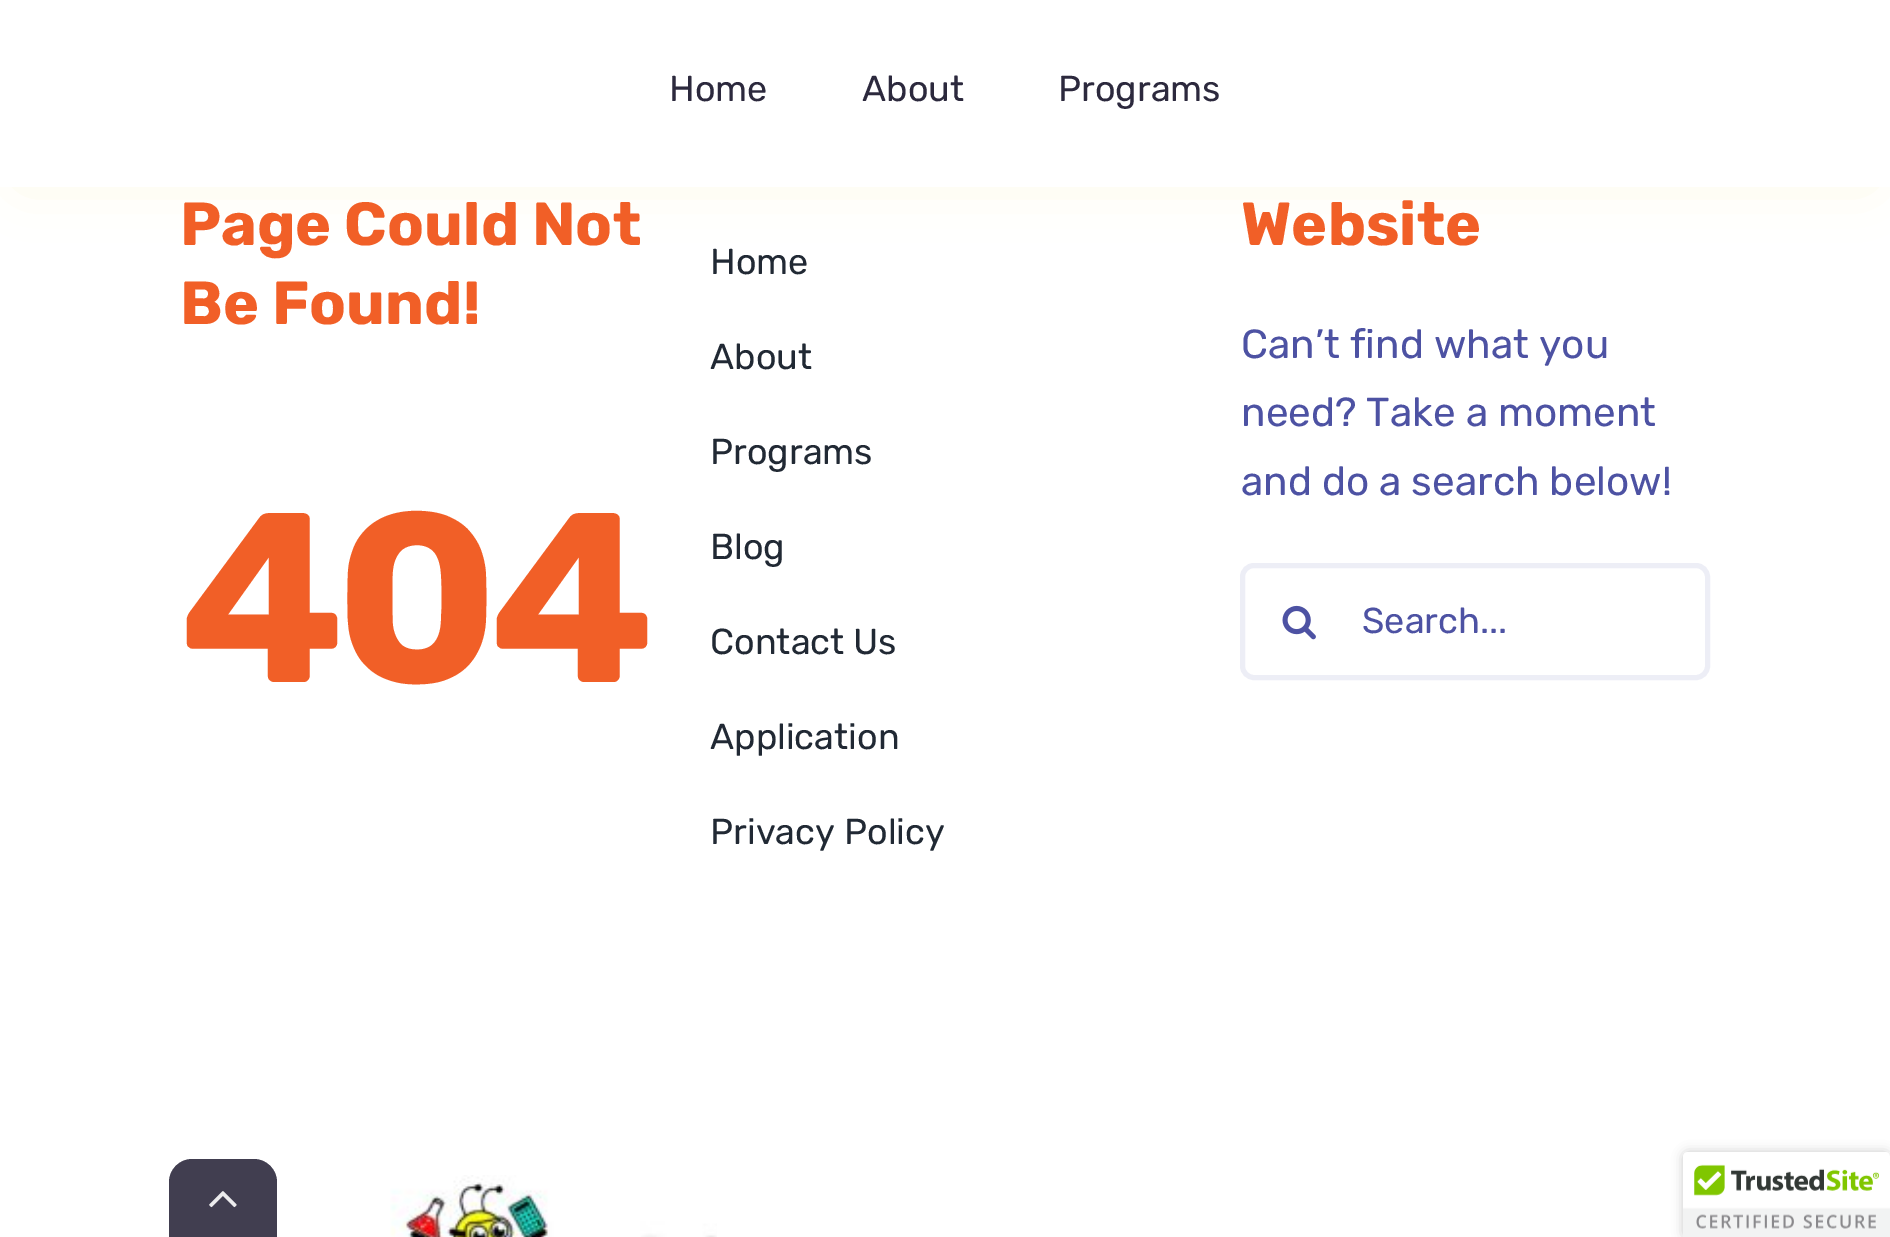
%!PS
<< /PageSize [1890 1237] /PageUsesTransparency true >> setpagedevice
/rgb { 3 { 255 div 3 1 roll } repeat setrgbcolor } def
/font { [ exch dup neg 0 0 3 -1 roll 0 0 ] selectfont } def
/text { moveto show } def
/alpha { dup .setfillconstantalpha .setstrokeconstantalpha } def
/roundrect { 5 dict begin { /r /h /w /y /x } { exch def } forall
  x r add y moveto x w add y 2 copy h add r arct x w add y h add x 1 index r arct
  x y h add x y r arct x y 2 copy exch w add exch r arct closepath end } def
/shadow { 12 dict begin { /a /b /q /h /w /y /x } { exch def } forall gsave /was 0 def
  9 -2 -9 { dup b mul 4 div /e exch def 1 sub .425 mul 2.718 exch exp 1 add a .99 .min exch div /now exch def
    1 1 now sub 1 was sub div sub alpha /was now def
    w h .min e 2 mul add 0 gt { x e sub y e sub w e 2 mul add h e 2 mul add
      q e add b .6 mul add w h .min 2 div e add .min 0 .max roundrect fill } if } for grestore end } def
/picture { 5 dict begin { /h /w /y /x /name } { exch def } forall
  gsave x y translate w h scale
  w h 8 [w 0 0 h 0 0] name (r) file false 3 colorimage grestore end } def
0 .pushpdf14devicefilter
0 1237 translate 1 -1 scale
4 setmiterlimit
255 255 255 rgb
0 0 1890 1237 rectfill
247 240 182 rgb
23 36 1845 142 0 29 0.5 shadow
255 255 255 rgb
0 0 1890 187 rectfill
237 238 246 rgb
5 setlinewidth
1242.5 565.5 465 112 11.5 roundrect stroke
(img_01.rgb) 1282 605 34 35 picture
(img_02.rgb) 390 1175 327 62 picture
65 62 80 rgb
192 1159 moveto 62 0 rlineto 12.5 0 23 10.5 23 23 rcurveto 0 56 rlineto -108 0 rlineto 0 -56 rlineto 0 -12.5 10.5 -23 23 -23 rcurveto closepath fill
(img_03.rgb) 209 1191 28 17 picture
0 0 0 rgb
1683 1152 207 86 5 5.5 0.2 shadow
255 255 255 rgb
1688 1152 moveto 202 0 rlineto 0 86 rlineto -207 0 rlineto 0 -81 rlineto 0 -3 2 -5 5 -5 rcurveto closepath fill
(img_04.rgb) 1683 1152 207 85 picture
/Rubik-Regular 36 font
44 41 61 rgb
(Home) 669 101 text
(About) 862 101 text
(Programs) 1058 101 text
/Rubik-Bold 60.75 font
241 95 39 rgb
(Page Could Not) 180 245 text
(Be Found!) 180 324 text
/Rubik-Bold 242 font
180 682 moveto -10 0 (404) ashow
/Rubik-Regular 36 font
33 41 52 rgb
(Home) 710 274 text
(About) 710 369 text
(Programs) 710 464 text
(Blog) 710 559 text
(Contact Us) 710 654 text
(Application) 710 749 text
(Privacy Policy) 710 844 text
/Rubik-Bold 60.75 font
241 95 39 rgb
(Website) 1241 245 text
/Rubik-Regular 40.5 font
77 82 163 rgb
(Can’t find what you) 1241 358 text
(need? Take a moment) 1241 426 text
(and do a search below!) 1241 495 text
/Rubik-Regular 36 font
(Search...) 1362 633 text
.poppdf14devicefilter showpage
